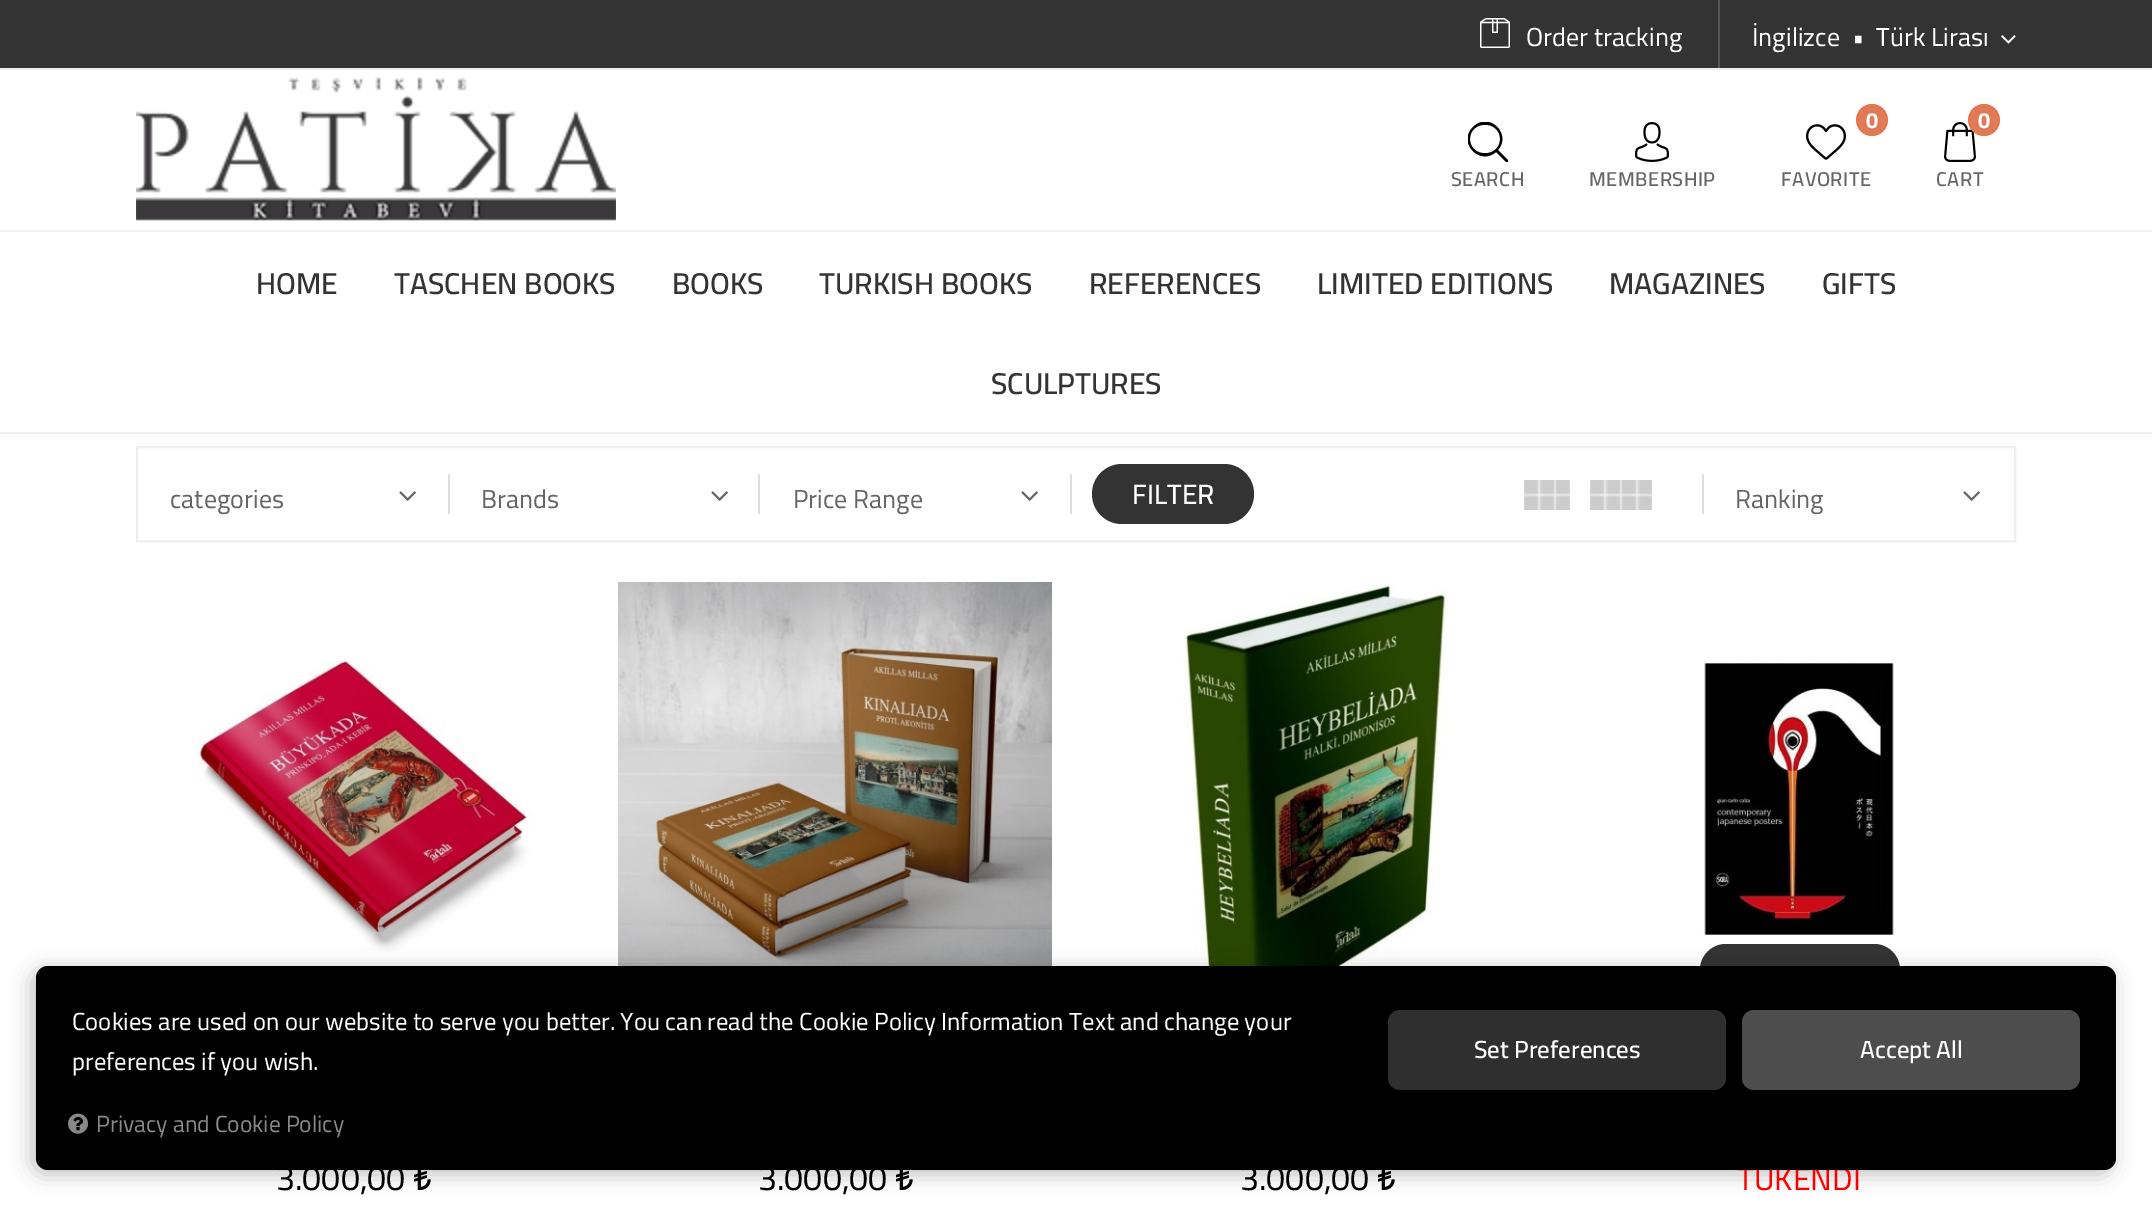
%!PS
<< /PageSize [2152 1205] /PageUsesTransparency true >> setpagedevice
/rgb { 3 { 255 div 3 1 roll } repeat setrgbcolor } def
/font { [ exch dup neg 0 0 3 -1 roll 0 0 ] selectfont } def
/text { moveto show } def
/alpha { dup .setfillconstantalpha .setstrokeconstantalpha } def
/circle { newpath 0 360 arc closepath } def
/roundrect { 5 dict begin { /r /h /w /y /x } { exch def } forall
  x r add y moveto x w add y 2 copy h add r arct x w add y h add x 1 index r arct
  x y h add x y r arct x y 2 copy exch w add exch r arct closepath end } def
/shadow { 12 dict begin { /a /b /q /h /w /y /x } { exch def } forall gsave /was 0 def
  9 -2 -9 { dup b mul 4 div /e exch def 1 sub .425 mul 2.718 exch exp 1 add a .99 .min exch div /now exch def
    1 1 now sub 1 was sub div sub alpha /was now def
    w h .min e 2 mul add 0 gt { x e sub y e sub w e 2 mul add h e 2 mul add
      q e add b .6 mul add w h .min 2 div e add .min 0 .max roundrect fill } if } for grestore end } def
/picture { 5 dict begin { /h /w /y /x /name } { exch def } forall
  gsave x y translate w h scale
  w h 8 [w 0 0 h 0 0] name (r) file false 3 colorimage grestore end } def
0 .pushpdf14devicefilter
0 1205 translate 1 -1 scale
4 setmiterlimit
255 255 255 rgb
0 0 2152 1205 rectfill
51 51 51 rgb
0 0 2152 68 rectfill
238 238 238 rgb
0 68 2152 2 rectfill
(img_01.rgb) 1480 18 30 30 picture
85 85 85 rgb
1718 0 2 68 rectfill
(img_02.rgb) 2001 35 15 9 picture
238 238 238 rgb
0 432 2152 2 rectfill
(img_03.rgb) 136 77 480 144 picture
gsave
1468 122 40 40 rectclip
0 0 0 rgb
1508 160 moveto -10 -10 rlineto 14 -16 -9 -39 -25 -23 rcurveto -16 16 7 39 23 25 rcurveto 10 10 rlineto 1 1 3 -1 2 -2 rcurveto closepath 1470 139 moveto 0 -19 30 -19 30 0 rcurveto 0 19 -30 19 -30 0 rcurveto closepath fill
grestore
(img_04.rgb) 1635 122 34 40 picture
224 121 86 rgb
1872 120 16 circle fill
(img_05.rgb) 1806 124 40 36 picture
(img_06.rgb) 1944 122 32 40 picture
1984 120 16 circle fill
241 241 241 rgb
0 230 2152 2 rectfill
238 238 238 rgb
2 setlinewidth
137 447 1878 94 rectstroke
(img_07.rgb) 399 491 17 10 picture
221 221 221 rgb
448 474 2 40 rectfill
(img_07.rgb) 711 491 17 10 picture
758 474 2 40 rectfill
(img_07.rgb) 1021 491 17 10 picture
1070 474 2 40 rectfill
51 51 51 rgb
1092 464 162 60 30 roundrect fill
204 204 204 rgb
1524 480 46 30 rectfill
(img_08.rgb) 1524 480 46 30 picture
1590 480 62 30 rectfill
(img_09.rgb) 1590 480 62 30 picture
221 221 221 rgb
1702 474 2 40 rectfill
(img_07.rgb) 1963 491 17 10 picture
(img_10.rgb) 197 659 340 293 picture
(img_11.rgb) 414 1170 17 20 picture
(img_12.rgb) 618 582 434 384 picture
(img_11.rgb) 896 1170 17 20 picture
(img_13.rgb) 1180 582 274 384 picture
(img_11.rgb) 1378 1170 17 20 picture
(img_14.rgb) 1703 660 192 276 picture
51 51 51 rgb
1700 944 200 52 26 roundrect fill
0 0 0 rgb
32 970 2080 204 12 10 0.25 shadow
/Cairo-Regular 26 font
255 255 255 rgb
(Order tracking) 1526 46 text
(İngilizce) 1752 46 text
(•) 1852 46 text
(Türk Lirası) 1876 46 text
/Cairo-SemiBold 20 font
102 102 102 rgb
1451 186 moveto 0.5 0 (SEARCH) ashow
1589 186 moveto 0.5 0 (MEMBERSHIP) ashow
/Cairo-Bold 22 font
255 255 255 rgb
(0) 1866 128 text
/Cairo-SemiBold 20 font
102 102 102 rgb
1781 186 moveto 0.5 0 (FAVORITE) ashow
/Cairo-Bold 22 font
255 255 255 rgb
(0) 1978 128 text
/Cairo-SemiBold 20 font
102 102 102 rgb
1936 186 moveto 0.5 0 (CART) ashow
/Cairo-SemiBold 30 font
51 51 51 rgb
(HOME) 256 294 text
(TASCHEN BOOKS) 394 294 text
(BOOKS) 672 294 text
(TURKISH BOOKS) 819 294 text
(REFERENCES) 1089 294 text
(LIMITED EDITIONS) 1317 294 text
(MAGAZINES) 1609 294 text
(GIFTS) 1822 294 text
(SCULPTURES) 991 394 text
/Cairo-Regular 26 font
102 102 102 rgb
(categories) 170 508 text
(Brands) 481 508 text
(Price Range) 793 508 text
/Cairo-SemiBold 28 font
255 255 255 rgb
(FILTER) 1132 504 text
/Cairo-Regular 26 font
102 102 102 rgb
(Ranking) 1735 508 text
/Cairo-Regular 34 font
0 0 0 rgb
(3.000,00) 276 1190 text
(3.000,00) 758 1190 text
(3.000,00) 1240 1190 text
/Cairo-Regular 32 font
255 0 0 rgb
(TÜKENDİ) 1737 1190 text
0 0 0 rgb
36 966 2080 204 12 roundrect fill
/Cairo-Regular 24.7 font
255 255 255 rgb
(Cookies are used on our website to serve you better. You can read the Cookie Policy Information Text and change your) 72 1030 text
(preferences if you wish.) 72 1070 text
47 47 47 rgb
1388 1010 338 80 12 roundrect fill
/Cairo-SemiBold 24.7 font
255 255 255 rgb
(Set Preferences) 1474 1058 text
77 77 77 rgb
1742 1010 338 80 12 roundrect fill
255 255 255 rgb
(Accept All) 1860 1058 text
(img_15.rgb) 68 1113 21 21 picture
/Cairo-Regular 23.4 font
136 136 136 rgb
(Privacy and Cookie Policy) 96 1132 text
.poppdf14devicefilter showpage
